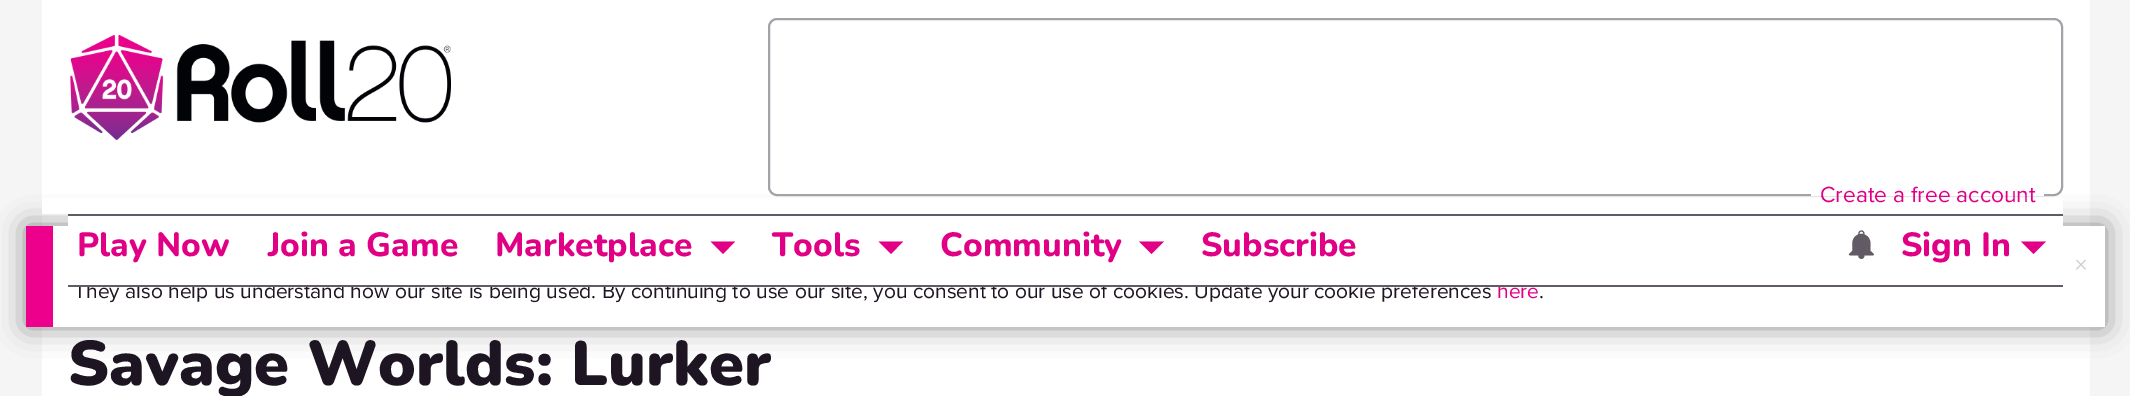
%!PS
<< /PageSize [2130 396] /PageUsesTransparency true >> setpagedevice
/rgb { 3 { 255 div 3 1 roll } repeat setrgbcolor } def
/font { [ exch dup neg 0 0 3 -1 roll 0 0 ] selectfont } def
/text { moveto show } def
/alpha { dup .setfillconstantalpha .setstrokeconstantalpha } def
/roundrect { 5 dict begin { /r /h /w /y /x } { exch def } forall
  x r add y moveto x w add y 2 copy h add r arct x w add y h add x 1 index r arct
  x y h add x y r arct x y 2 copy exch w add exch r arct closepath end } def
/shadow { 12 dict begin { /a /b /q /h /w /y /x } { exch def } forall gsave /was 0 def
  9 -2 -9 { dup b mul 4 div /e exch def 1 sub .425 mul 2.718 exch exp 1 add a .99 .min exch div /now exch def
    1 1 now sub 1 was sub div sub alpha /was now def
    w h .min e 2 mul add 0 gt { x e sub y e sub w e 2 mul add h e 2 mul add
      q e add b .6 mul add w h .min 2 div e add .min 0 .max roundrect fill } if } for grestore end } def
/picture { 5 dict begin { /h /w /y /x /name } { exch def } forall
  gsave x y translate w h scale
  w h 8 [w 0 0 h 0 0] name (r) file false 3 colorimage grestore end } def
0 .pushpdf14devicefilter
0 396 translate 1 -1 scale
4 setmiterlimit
245 245 245 rgb
0 0 2130 396 rectfill
255 255 255 rgb
42 0 2048 226 rectfill
42 327 2048 69 rectfill
136 136 136 rgb
26 226 2079 101 0 14 1 shadow
255 255 255 rgb
42 198 2021 16 rectfill
(img_01.rgb) 70 35 381 105 picture
165 161 167 rgb
2 setlinewidth
769 19 1293 176 8 roundrect stroke
255 255 255 rgb
1811 194 233 2 rectfill
98 91 101 rgb
68 214 1995 2 rectfill
255 255 255 rgb
53 226 2052 101 rectfill
236 0 140 rgb
26 226 27 101 rectfill
/ProximaNova-Regular 22.75 font
225 0 133 rgb
(Create a free account) 1820 202 text
/ProximaNova-Regular 28 font
209 209 209 rgb
(×) 2074 274 text
/ProximaNova-Regular 21 font
30 21 35 rgb
(They also help us understand how our site is being used. By continuing to use our site, you consent to our use of cookies. Update your cookie preferences) 74 298 text
225 0 133 rgb
(here) 1497 298 text
255 255 255 rgb
68 216 1995 69 rectfill
/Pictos-Regular 33.5 font
98 91 101 rgb
(:) 1848 254 text
225 0 133 rgb
2021 241.5 moveto 25 0 rlineto -12.5 12.5 rlineto closepath fill
/Nunito-ExtraBold 33.5 font
(Sign In) 1901 256 text
(Subscribe) 1201 256 text
1139 241.5 moveto 25 0 rlineto -12.5 12.5 rlineto closepath fill
(Community) 940 256 text
878.5 241.5 moveto 24.5 0 rlineto -12 12.5 rlineto closepath fill
(Tools) 772 256 text
710.5 241.5 moveto 24.5 0 rlineto -12 12.5 rlineto closepath fill
(Marketplace) 495 256 text
(Join a Game) 268 256 text
(Play Now) 77 256 text
98 91 101 rgb
68 285 1995 2 rectfill
/ProximaNova-Regular 21 font
30 21 35 rgb
(.) 1539 298 text
/Nunito-Black 63 font
(Savage Worlds: Lurker) 68 385 text
.poppdf14devicefilter showpage
